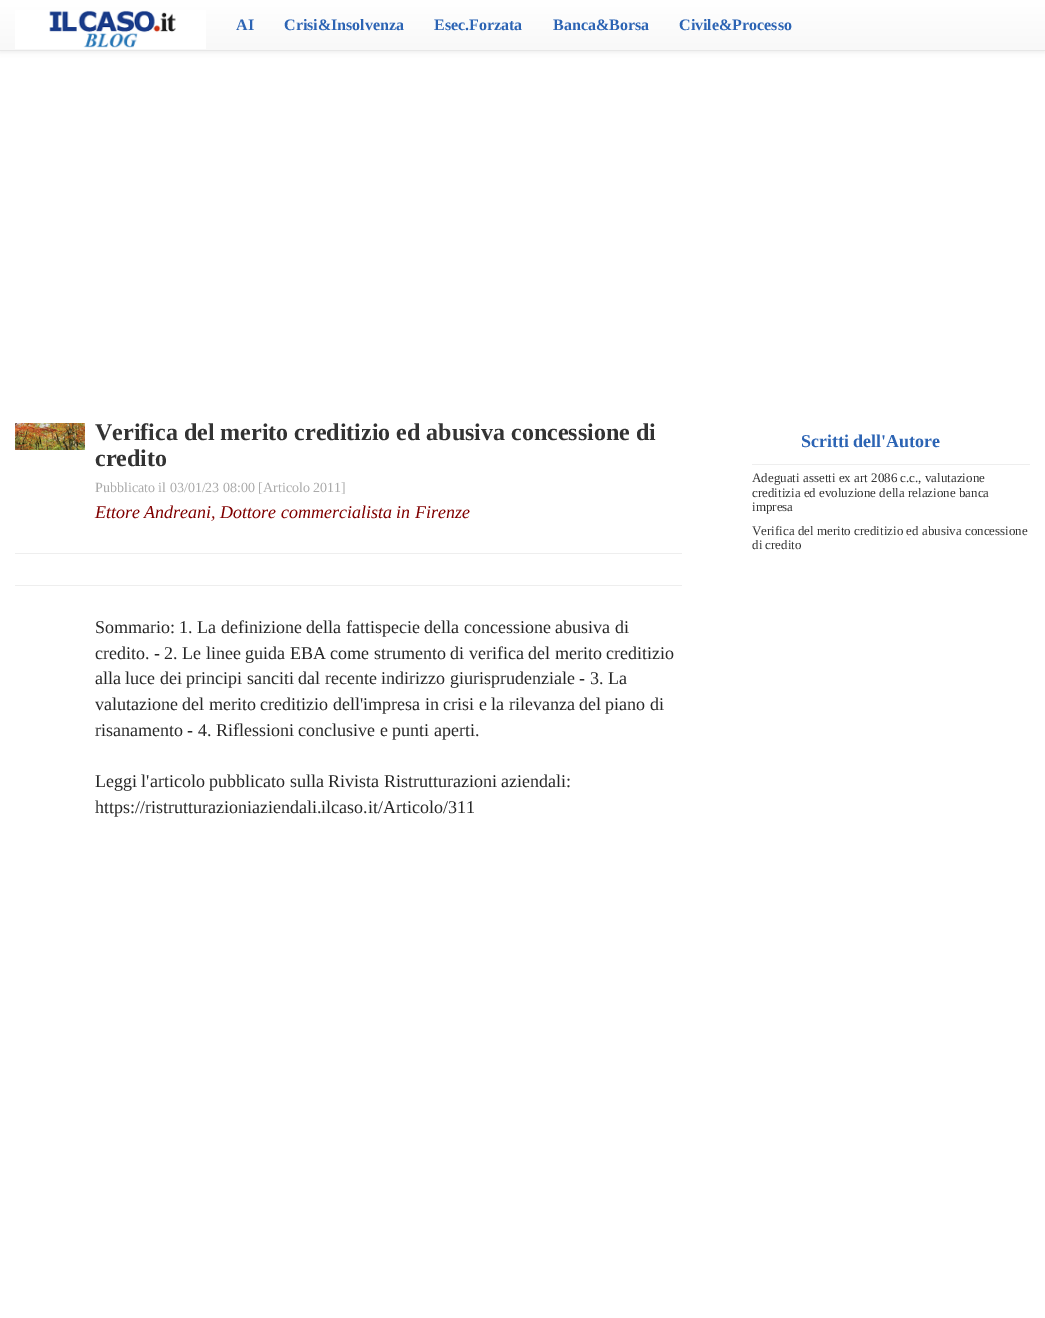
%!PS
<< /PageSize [1045 1318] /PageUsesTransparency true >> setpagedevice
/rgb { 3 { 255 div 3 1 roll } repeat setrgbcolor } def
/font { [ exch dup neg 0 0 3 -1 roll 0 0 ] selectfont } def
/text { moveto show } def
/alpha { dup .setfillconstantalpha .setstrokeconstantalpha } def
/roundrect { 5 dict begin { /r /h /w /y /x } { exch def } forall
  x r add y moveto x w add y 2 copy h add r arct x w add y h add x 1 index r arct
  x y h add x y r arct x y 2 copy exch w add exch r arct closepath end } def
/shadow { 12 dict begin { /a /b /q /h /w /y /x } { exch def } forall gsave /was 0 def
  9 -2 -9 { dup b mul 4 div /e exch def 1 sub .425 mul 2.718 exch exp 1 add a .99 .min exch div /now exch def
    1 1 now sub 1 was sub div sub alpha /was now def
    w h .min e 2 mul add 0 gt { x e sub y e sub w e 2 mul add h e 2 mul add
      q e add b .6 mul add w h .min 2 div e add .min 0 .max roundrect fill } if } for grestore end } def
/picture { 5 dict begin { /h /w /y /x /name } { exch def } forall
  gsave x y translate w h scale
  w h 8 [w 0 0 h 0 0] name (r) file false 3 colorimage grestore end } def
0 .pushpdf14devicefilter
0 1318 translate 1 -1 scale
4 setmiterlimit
255 255 255 rgb
0 0 1045 1318 rectfill
0 0 0 rgb
0 1 1045 51 0 2.5 0.07 shadow
gsave 0 0 moveto 1045 0 rlineto 0 50 rlineto -1045 0 rlineto closepath clip newpath
<< /ShadingType 2 /ColorSpace /DeviceRGB /Coords [523 0 523 50] /Extend [true true] /Function << /FunctionType 2 /Domain [0 1] /C0 [1 1 1] /C1 [0.973 0.973 0.973] /N 1 >> >> shfill grestore
231 231 231 rgb
0 50 1045 1 rectfill
(img_01.rgb) 15 10 191 39 picture
(img_02.rgb) 15 423 70 27 picture
238 238 238 rgb
15 553 667 1 rectfill
15 585 667 1 rectfill
752 464 278 1 rectfill
/LiberationSerif-Bold 16 font
44 100 180 rgb
(AI) 236 30 text
(Crisi&Insolvenza) 284 30 text
(Esec.Forzata) 434 30 text
(Banca&Borsa) 553 30 text
(Civile&Processo) 679 30 text
/LiberationSerif-Bold 24 font
51 51 51 rgb
(Verifica del merito creditizio ed abusiva concessione di) 95 440 text
(credito) 95 466 text
/LiberationSerif-Regular 14 font
170 170 170 rgb
(Pubblicato il 03/01/23 08:00 [Articolo 2011]) 95 492 text
/LiberationSerif-Italic 18 font
128 0 0 rgb
(Ettore Andreani, Dottore commercialista in Firenze) 95 518 text
/LiberationSerif-Regular 18 font
39 39 39 rgb
(Sommario: 1. La definizione della fattispecie della concessione abusiva di) 95 633 text
(credito. - 2. Le linee guida EBA come strumento di verifica del merito creditizio) 95 659 text
(alla luce dei principi sanciti dal recente indirizzo giurisprudenziale - 3. La) 95 684 text
(valutazione del merito creditizio dell'impresa in crisi e la rilevanza del piano di) 95 710 text
(risanamento - 4. Riflessioni conclusive e punti aperti.) 95 736 text
(Leggi l'articolo pubblicato sulla Rivista Ristrutturazioni aziendali:) 95 787 text
(https://ristrutturazioniaziendali.ilcaso.it/Articolo/311) 95 813 text
/LiberationSerif-Bold 18 font
44 100 180 rgb
(Scritti dell'Autore) 801 447 text
/LiberationSerif-Regular 13 font
51 51 51 rgb
(Adeguati assetti ex art 2086 c.c., valutazione) 752 482 text
(creditizia ed evoluzione della relazione banca) 752 497 text
(impresa) 752 511 text
(Verifica del merito creditizio ed abusiva concessione) 752 535 text
(di credito) 752 549 text
.poppdf14devicefilter showpage
